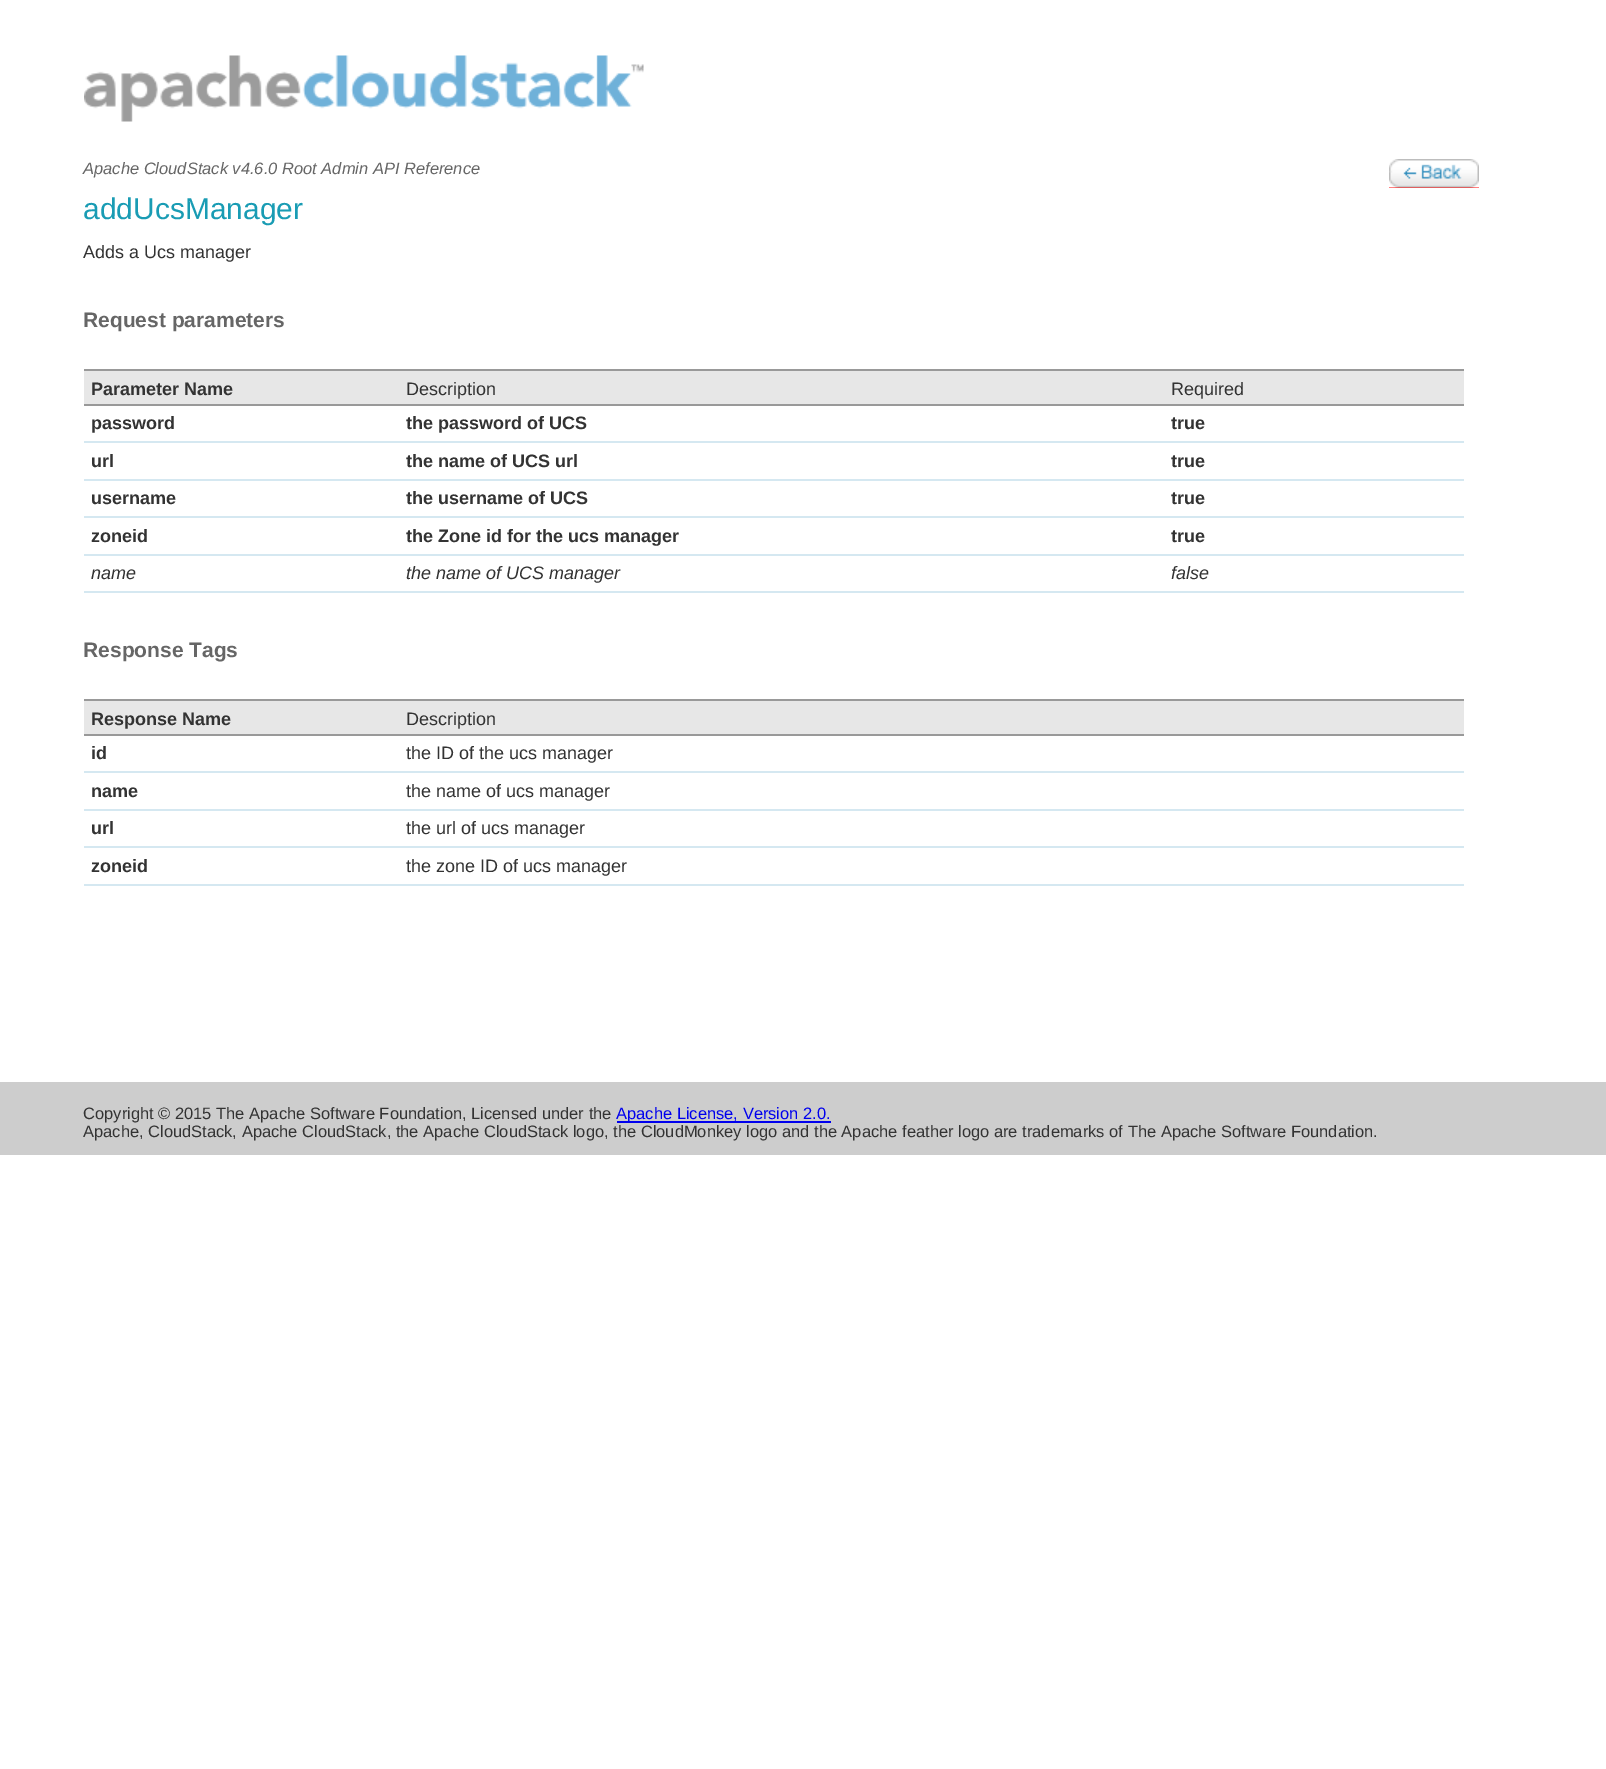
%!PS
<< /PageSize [1606 1769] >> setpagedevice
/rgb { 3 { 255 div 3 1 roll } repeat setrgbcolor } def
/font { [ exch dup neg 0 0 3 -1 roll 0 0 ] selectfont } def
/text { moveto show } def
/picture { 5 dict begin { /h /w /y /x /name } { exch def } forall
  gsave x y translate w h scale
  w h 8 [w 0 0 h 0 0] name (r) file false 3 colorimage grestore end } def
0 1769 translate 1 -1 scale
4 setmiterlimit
255 255 255 rgb
0 0 1606 1769 rectfill
(img_01.rgb) 84 55 560 67 picture
255 0 0 rgb
1389 187 90 1 rectfill
(img_02.rgb) 1389 159 90 29 picture
231 231 231 rgb
84 371 1380 33 rectfill
153 153 153 rgb
84 369 1380 2 rectfill
84 404 1380 2 rectfill
213 232 241 rgb
84 441 1380 2 rectfill
84 479 1380 2 rectfill
84 516 1380 2 rectfill
84 554 1380 2 rectfill
84 591 1380 2 rectfill
231 231 231 rgb
84 701 1380 33 rectfill
153 153 153 rgb
84 699 1380 2 rectfill
84 734 1380 2 rectfill
213 232 241 rgb
84 771 1380 2 rectfill
84 809 1380 2 rectfill
84 846 1380 2 rectfill
84 884 1380 2 rectfill
205 205 205 rgb
0 1082 1606 73 rectfill
0 0 238 rgb
617 1121 214 2 rectfill
/LiberationSans-Italic 16.5 font
102 102 102 rgb
(Apache CloudStack v4.6.0 Root Admin API Reference) 83 174 text
/LiberationSans-Regular 30 font
25 156 180 rgb
(addUcsManager) 83 219 text
/LiberationSans-Regular 18 font
51 51 51 rgb
(Adds a Ucs manager) 83 258 text
/LiberationSans-Bold 21 font
102 102 102 rgb
(Request parameters) 83 327 text
/LiberationSans-Bold 18 font
51 51 51 rgb
(Parameter Name) 91 395 text
/LiberationSans-Regular 18 font
(Description) 406 395 text
(Required) 1171 395 text
/LiberationSans-Bold 18 font
(password) 91 429 text
(the password of UCS) 406 429 text
(true) 1171 429 text
(url) 91 467 text
(the name of UCS url) 406 467 text
(true) 1171 467 text
(username) 91 504 text
(the username of UCS) 406 504 text
(true) 1171 504 text
(zoneid) 91 542 text
(the Zone id for the ucs manager) 406 542 text
(true) 1171 542 text
/LiberationSans-Italic 18 font
(name) 91 579 text
(the name of UCS manager) 406 579 text
(false) 1171 579 text
/LiberationSans-Bold 21 font
102 102 102 rgb
(Response Tags) 83 657 text
/LiberationSans-Bold 18 font
51 51 51 rgb
(Response Name) 91 725 text
/LiberationSans-Regular 18 font
(Description) 406 725 text
/LiberationSans-Bold 18 font
(id) 91 759 text
/LiberationSans-Regular 18 font
(the ID of the ucs manager) 406 759 text
/LiberationSans-Bold 18 font
(name) 91 797 text
/LiberationSans-Regular 18 font
(the name of ucs manager) 406 797 text
/LiberationSans-Bold 18 font
(url) 91 834 text
/LiberationSans-Regular 18 font
(the url of ucs manager) 406 834 text
/LiberationSans-Bold 18 font
(zoneid) 91 872 text
/LiberationSans-Regular 18 font
(the zone ID of ucs manager) 406 872 text
/LiberationSans-Regular 16.5 font
(Copyright © 2015 The Apache Software Foundation, Licensed under the) 83 1119 text
0 0 238 rgb
(Apache License, Version 2.0.) 616 1119 text
51 51 51 rgb
(Apache, CloudStack, Apache CloudStack, the Apache CloudStack logo, the CloudMonkey logo and the Apache feather logo are trademarks of The Apache Software Foundation.) 83 1137 text
showpage
